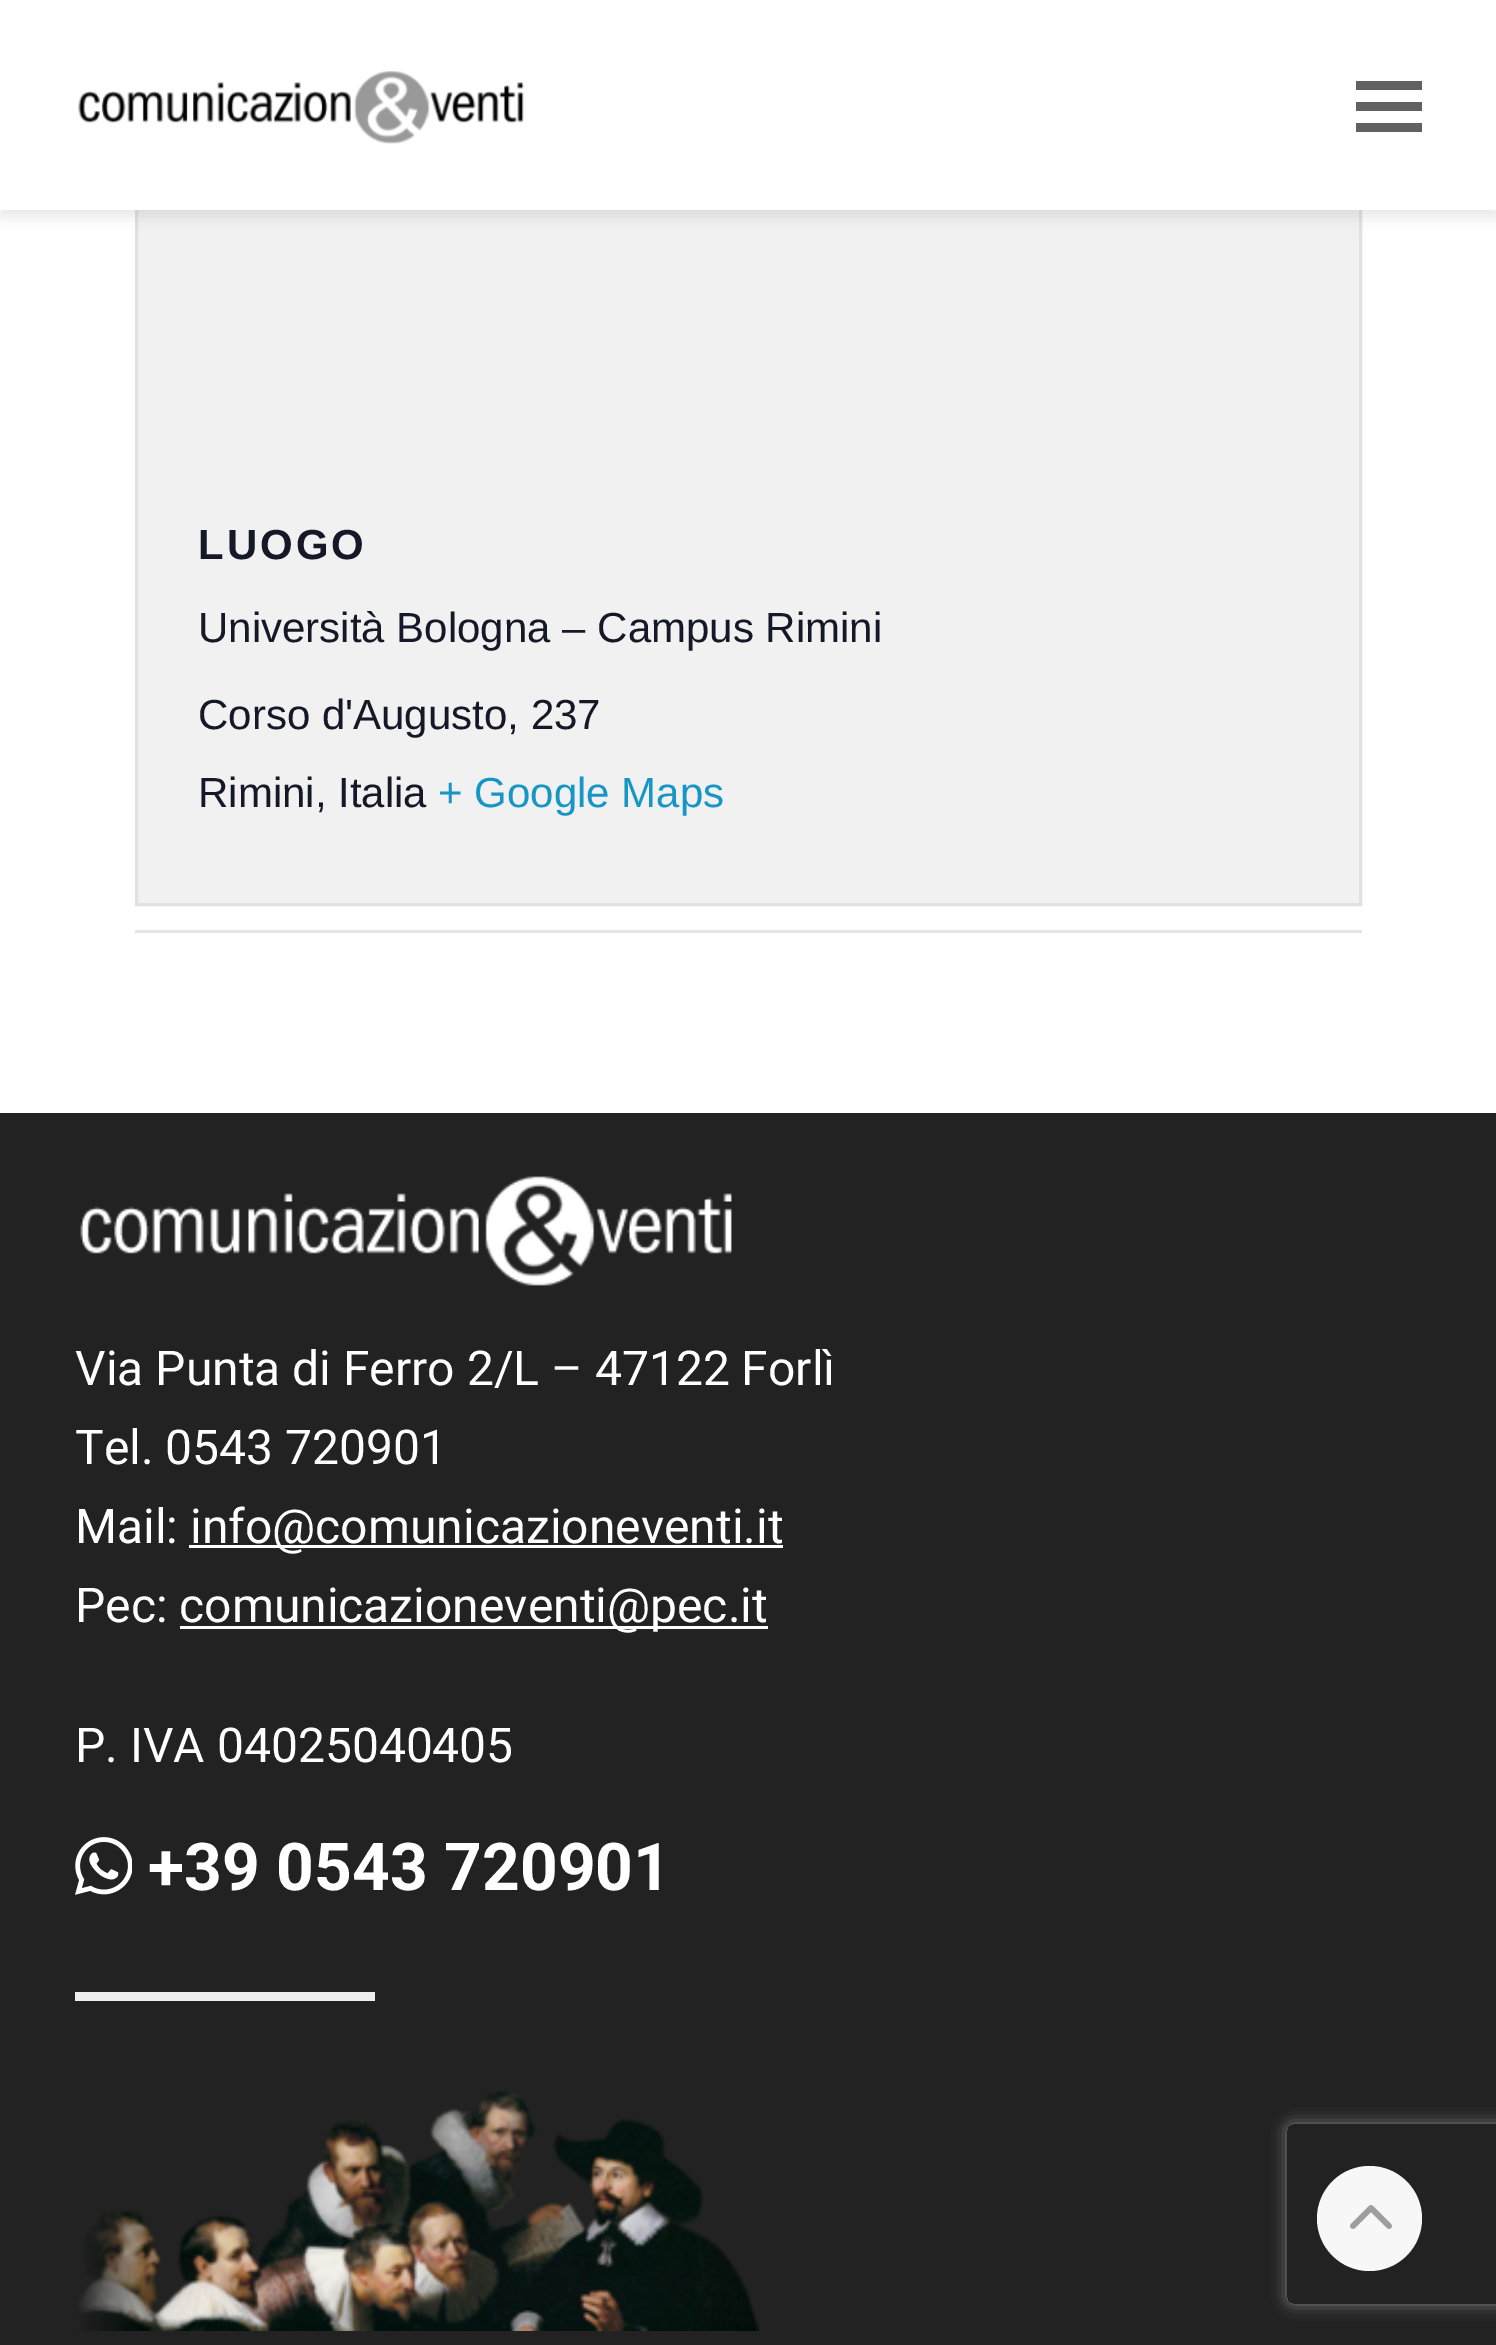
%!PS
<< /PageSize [1496 2345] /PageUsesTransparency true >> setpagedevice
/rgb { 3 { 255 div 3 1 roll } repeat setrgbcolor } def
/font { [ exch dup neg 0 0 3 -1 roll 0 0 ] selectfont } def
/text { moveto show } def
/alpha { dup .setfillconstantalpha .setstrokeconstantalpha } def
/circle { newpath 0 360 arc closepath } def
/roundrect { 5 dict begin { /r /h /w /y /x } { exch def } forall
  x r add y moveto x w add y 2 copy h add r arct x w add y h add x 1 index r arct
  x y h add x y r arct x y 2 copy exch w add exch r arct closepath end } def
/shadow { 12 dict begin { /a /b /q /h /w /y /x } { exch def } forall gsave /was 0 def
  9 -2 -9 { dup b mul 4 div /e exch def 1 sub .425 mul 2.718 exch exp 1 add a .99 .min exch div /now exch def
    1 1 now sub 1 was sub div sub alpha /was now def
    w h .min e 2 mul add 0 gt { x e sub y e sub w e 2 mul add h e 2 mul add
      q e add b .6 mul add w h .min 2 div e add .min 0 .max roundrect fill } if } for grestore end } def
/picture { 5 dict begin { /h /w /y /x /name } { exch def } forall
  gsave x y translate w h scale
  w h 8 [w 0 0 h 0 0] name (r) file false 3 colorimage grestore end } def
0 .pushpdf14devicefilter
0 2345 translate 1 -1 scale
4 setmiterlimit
255 255 255 rgb
0 0 1496 2345 rectfill
241 241 241 rgb
138 210 1221 693 rectfill
225 225 225 rgb
3 setlinewidth
136.5 -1.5 1224 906 rectstroke
0 0 0 rgb
0 6 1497 210 0 7.5 0.1 shadow
255 255 255 rgb
0 0 1496 210 rectfill
(img_01.rgb) 78 71 446 73 picture
97 97 97 rgb
1356 102 66 9 rectfill
1356 81 66 9 rectfill
1356 123 66 9 rectfill
228 228 228 rgb
135 930 1227 3 rectfill
34 34 34 rgb
0 1113 1496 1232 rectfill
(img_02.rgb) 80 1176 652 110 picture
255 255 255 rgb
189 1545 594 3 rectfill
180 1626 588 3 rectfill
(img_03.rgb) 75 1837 57 58 picture
238 238 238 rgb
75 1992 300 9 rectfill
(img_04.rgb) 78 2091 681 240 picture
gsave
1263 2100 moveto 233 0 rlineto 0 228 rlineto -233 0 rlineto closepath 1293 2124 moveto 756 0 rlineto 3.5 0 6 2.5 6 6 rcurveto 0 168 rlineto 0 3.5 -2.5 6 -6 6 rcurveto -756 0 rlineto -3.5 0 -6 -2.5 -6 -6 rcurveto 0 -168 rlineto 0 -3.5 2.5 -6 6 -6 rcurveto closepath eoclip newpath
128 128 128 rgb
1287 2124 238 180 6 7.5 1 shadow
grestore
247 247 247 rgb
1369.5 2218.5 52.5 circle fill
(img_05.rgb) 1350 2205 42 24 picture
/LiberationSans-Bold 42 font
20 24 39 rgb
198 559 moveto 3 0 (LUOGO) ashow
/LiberationSans-Regular 42 font
(Università Bologna – Campus Rimini) 198 642 text
(Corso d'Augusto, 237) 198 729 text
(Rimini, Italia) 198 807 text
23 150 198 rgb
(+ Google Maps) 438 807 text
/Roboto-Regular 48 font
255 255 255 rgb
(Via Punta di Ferro 2/L – 47122 Forlì) 75 1385 text
(Tel. 0543 720901) 75 1464 text
(Mail:) 75 1543 text
(info@comunicazioneventi.it) 190 1543 text
(Pec:) 75 1622 text
(comunicazioneventi@pec.it) 179 1622 text
(P. IVA 04025040405) 75 1762 text
/Roboto-Bold 66 font
(+39 0543 720901) 148 1890 text
.poppdf14devicefilter showpage
